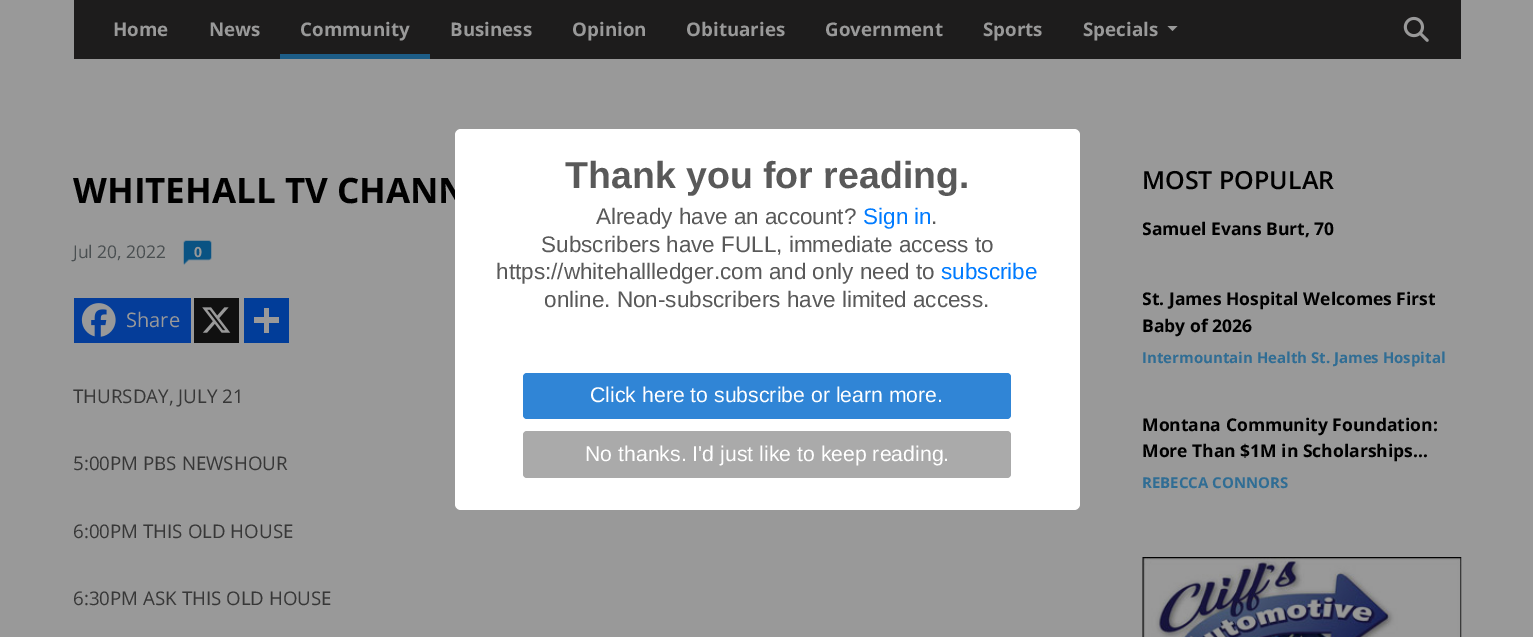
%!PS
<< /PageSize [1533 637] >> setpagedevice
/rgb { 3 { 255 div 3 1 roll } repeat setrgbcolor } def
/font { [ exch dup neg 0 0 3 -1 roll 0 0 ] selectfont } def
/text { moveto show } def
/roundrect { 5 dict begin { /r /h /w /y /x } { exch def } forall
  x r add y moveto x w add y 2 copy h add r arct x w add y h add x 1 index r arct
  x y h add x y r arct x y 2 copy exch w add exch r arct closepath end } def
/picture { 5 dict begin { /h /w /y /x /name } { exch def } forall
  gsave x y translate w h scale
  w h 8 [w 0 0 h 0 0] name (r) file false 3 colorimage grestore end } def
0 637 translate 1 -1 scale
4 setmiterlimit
153 153 153 rgb
0 0 1533 637 rectfill
29 28 28 rgb
74 0 1387 59 rectfill
28 92 134 rgb
280 54 150 5 rectfill
153 153 153 rgb
1167.5 26 moveto 10 0 rlineto -5 5 rlineto closepath fill
(img_01.rgb) 1403 16 26 26 picture
(img_02.rgb) 183 240 29 25 picture
5 61 153 rgb
74 298 117 45 rectfill
(img_03.rgb) 81 303 35 34 picture
16 16 16 rgb
194 298 45 45 rectfill
(img_04.rgb) 202 307 29 26 picture
1 61 153 rgb
244 298 45 45 rectfill
153 153 153 rgb
264 308 5 25 rectfill
254 317 25 6 rectfill
(img_05.rgb) 1142 557 320 80 picture
/OpenSans-Bold 18.75 font
(Home) 113 36 text
(News) 209 36 text
(Community) 300 36 text
(Business) 450 36 text
(Opinion) 572 36 text
(Obituaries) 686 36 text
(Government) 825 36 text
(Sports) 983 36 text
(Specials) 1083 36 text
/OpenSans-Bold 35 font
0 0 0 rgb
(WHITEHALL TV CHANN) 73 203 text
255 255 255 rgb
455 129 625 381 6 roundrect fill
/LiberationSans-Regular 22.5 font
89 89 89 rgb
(online. Non-subscribers have limited access.) 544 307 text
0 123 255 rgb
(subscribe) 941 279 text
89 89 89 rgb
(https://whitehallledger.com and only need to) 496 279 text
(Subscribers have FULL, immediate access to) 541 252 text
(.) 931 224 text
0 123 255 rgb
(Sign in) 863 224 text
89 89 89 rgb
(Already have an account?) 596 224 text
/LiberationSans-Bold 37.5 font
(Thank you for reading.) 565 188 text
170 170 170 rgb
523 431 488 47 4 roundrect fill
/LiberationSans-Regular 21.25 font
255 255 255 rgb
(No thanks. I'd just like to keep reading.) 585 461 text
48 133 214 rgb
523 373 488 46 4 roundrect fill
255 255 255 rgb
(Click here to subscribe or learn more.) 590 402 text
/OpenSans-Regular 17.5 font
74 79 81 rgb
(Jul 20, 2022) 73 258 text
/OpenSans-Bold 14 font
153 153 153 rgb
(0) 194 257 text
/OpenSans-Regular 20 font
(Share) 126 327 text
/OpenSans-Regular 18.75 font
55 55 55 rgb
(THURSDAY, JULY 21) 73 403 text
(5:00PM PBS NEWSHOUR) 73 470 text
(6:00PM THIS OLD HOUSE) 73 538 text
(6:30PM ASK THIS OLD HOUSE) 73 605 text
/OpenSans-SemiBold 25 font
0 0 0 rgb
(MOST POPULAR) 1142 189 text
gsave
1143 215 318 26 rectclip
/OpenSans-Bold 17.5 font
(Samuel Evans Burt, 70) 1142 235 text
grestore
gsave
1143 285 318 53 rectclip
/OpenSans-Bold 17.5 font
(St. James Hospital Welcomes First) 1142 305 text
grestore
/OpenSans-Bold 17.5 font
(Baby of 2026) 1142 332 text
/OpenSans-Bold 15 font
48 109 148 rgb
(Intermountain Health St. James Hospital) 1142 363 text
/OpenSans-Bold 17.5 font
0 0 0 rgb
(Montana Community Foundation:) 1142 431 text
(More Than $1M in Scholarships…) 1142 457 text
/OpenSans-Bold 15 font
48 109 148 rgb
(REBECCA CONNORS) 1142 488 text
showpage
